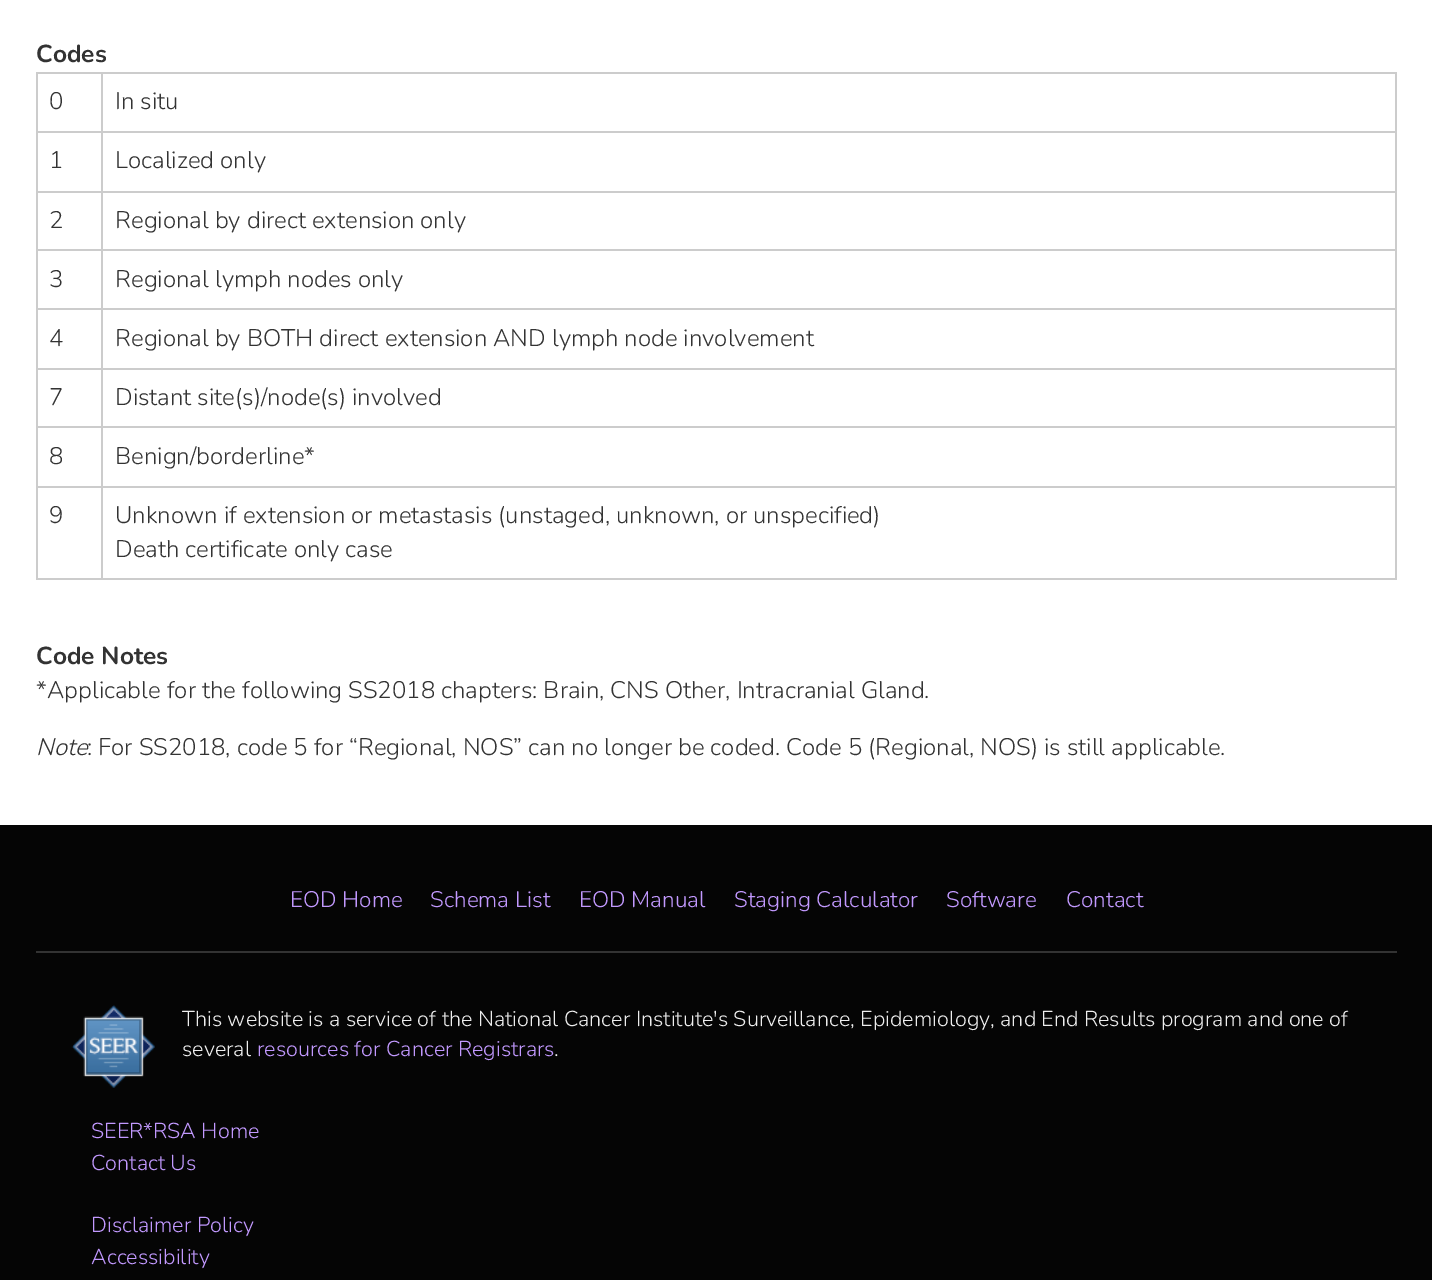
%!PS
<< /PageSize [1432 1280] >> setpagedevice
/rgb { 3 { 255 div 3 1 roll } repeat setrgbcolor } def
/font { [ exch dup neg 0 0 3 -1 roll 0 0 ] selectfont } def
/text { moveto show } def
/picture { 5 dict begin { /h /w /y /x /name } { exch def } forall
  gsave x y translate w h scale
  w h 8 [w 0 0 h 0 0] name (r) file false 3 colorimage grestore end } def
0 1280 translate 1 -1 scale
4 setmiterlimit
5 5 5 rgb
0 0 1432 1280 rectfill
255 255 255 rgb
0 0 1432 825 rectfill
204 204 204 rgb
101 72 1296 2 rectfill
101 131 1296 2 rectfill
101 191 1296 2 rectfill
101 249 1296 2 rectfill
101 308 1296 2 rectfill
101 368 1296 2 rectfill
101 426 1296 2 rectfill
101 486 1296 2 rectfill
1395 486 2 93 rectfill
101 578 1296 2 rectfill
101 486 2 93 rectfill
36 486 66 2 rectfill
101 426 2 62 rectfill
36 426 66 2 rectfill
101 368 2 60 rectfill
36 368 66 2 rectfill
101 308 2 61 rectfill
36 308 66 2 rectfill
101 249 2 60 rectfill
36 249 66 2 rectfill
101 191 2 60 rectfill
36 191 66 2 rectfill
101 131 2 61 rectfill
36 131 66 2 rectfill
101 72 2 60 rectfill
36 72 66 2 rectfill
36 578 66 2 rectfill
36 486 2 93 rectfill
36 426 2 62 rectfill
36 368 2 60 rectfill
36 308 2 61 rectfill
36 249 2 60 rectfill
36 191 2 60 rectfill
36 131 2 61 rectfill
36 72 2 60 rectfill
1395 426 2 62 rectfill
1395 368 2 60 rectfill
1395 308 2 61 rectfill
1395 249 2 60 rectfill
1395 191 2 60 rectfill
1395 131 2 61 rectfill
1395 72 2 60 rectfill
51 51 51 rgb
36 951 1361 2 rectfill
(img_01.rgb) 71 1005 84 83 picture
/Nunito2-ExtraLight 24.5 font
(Codes) 36 62 text
/Nunito-ExtraLight 24 font
(0) 49 109 text
(In situ) 115 109 text
(1) 49 168 text
(Localized only) 115 168 text
(2) 49 228 text
(Regional by direct extension only) 115 228 text
(3) 49 287 text
(Regional lymph nodes only) 115 287 text
(4) 49 346 text
(Regional by BOTH direct extension AND lymph node involvement) 115 346 text
(7) 49 405 text
(Distant site\(s\)/node\(s\) involved) 115 405 text
(8) 49 464 text
(Benign/borderline*) 115 464 text
(9) 49 523 text
(Unknown if extension or metastasis \(unstaged, unknown, or unspecified\)) 115 523 text
(Death certificate only case) 115 557 text
/Nunito2-ExtraLight 24.5 font
(Code Notes) 36 664 text
/Nunito-ExtraLight 24 font
(*Applicable for the following SS2018 chapters: Brain, CNS Other, Intracranial Gland.) 36 698 text
/Nunito-ExtraLightItalic 24 font
(Note) 36 755 text
/Nunito-ExtraLight 24 font
(: For SS2018, code 5 for “Regional, NOS” can no longer be coded. Code 5 \(Regional, NOS\) is still applicable.) 87 755 text
/Nunito-ExtraLight 22.5 font
194 153 255 rgb
(EOD Home) 290 907 text
(Schema List) 430 907 text
(EOD Manual) 579 907 text
(Staging Calculator) 734 907 text
(Software) 946 907 text
(Contact) 1066 907 text
/Nunito-ExtraLight 21.6 font
238 238 238 rgb
(This website is a service of the National Cancer Institute's Surveillance, Epidemiology, and End Results program and one of) 182 1026 text
(several) 182 1056 text
194 153 255 rgb
(resources for Cancer Registrars) 257 1056 text
238 238 238 rgb
(.) 554 1056 text
194 153 255 rgb
(SEER*RSA Home) 91 1138 text
(Contact Us) 91 1170 text
(Disclaimer Policy) 91 1232 text
(Accessibility) 91 1264 text
showpage
